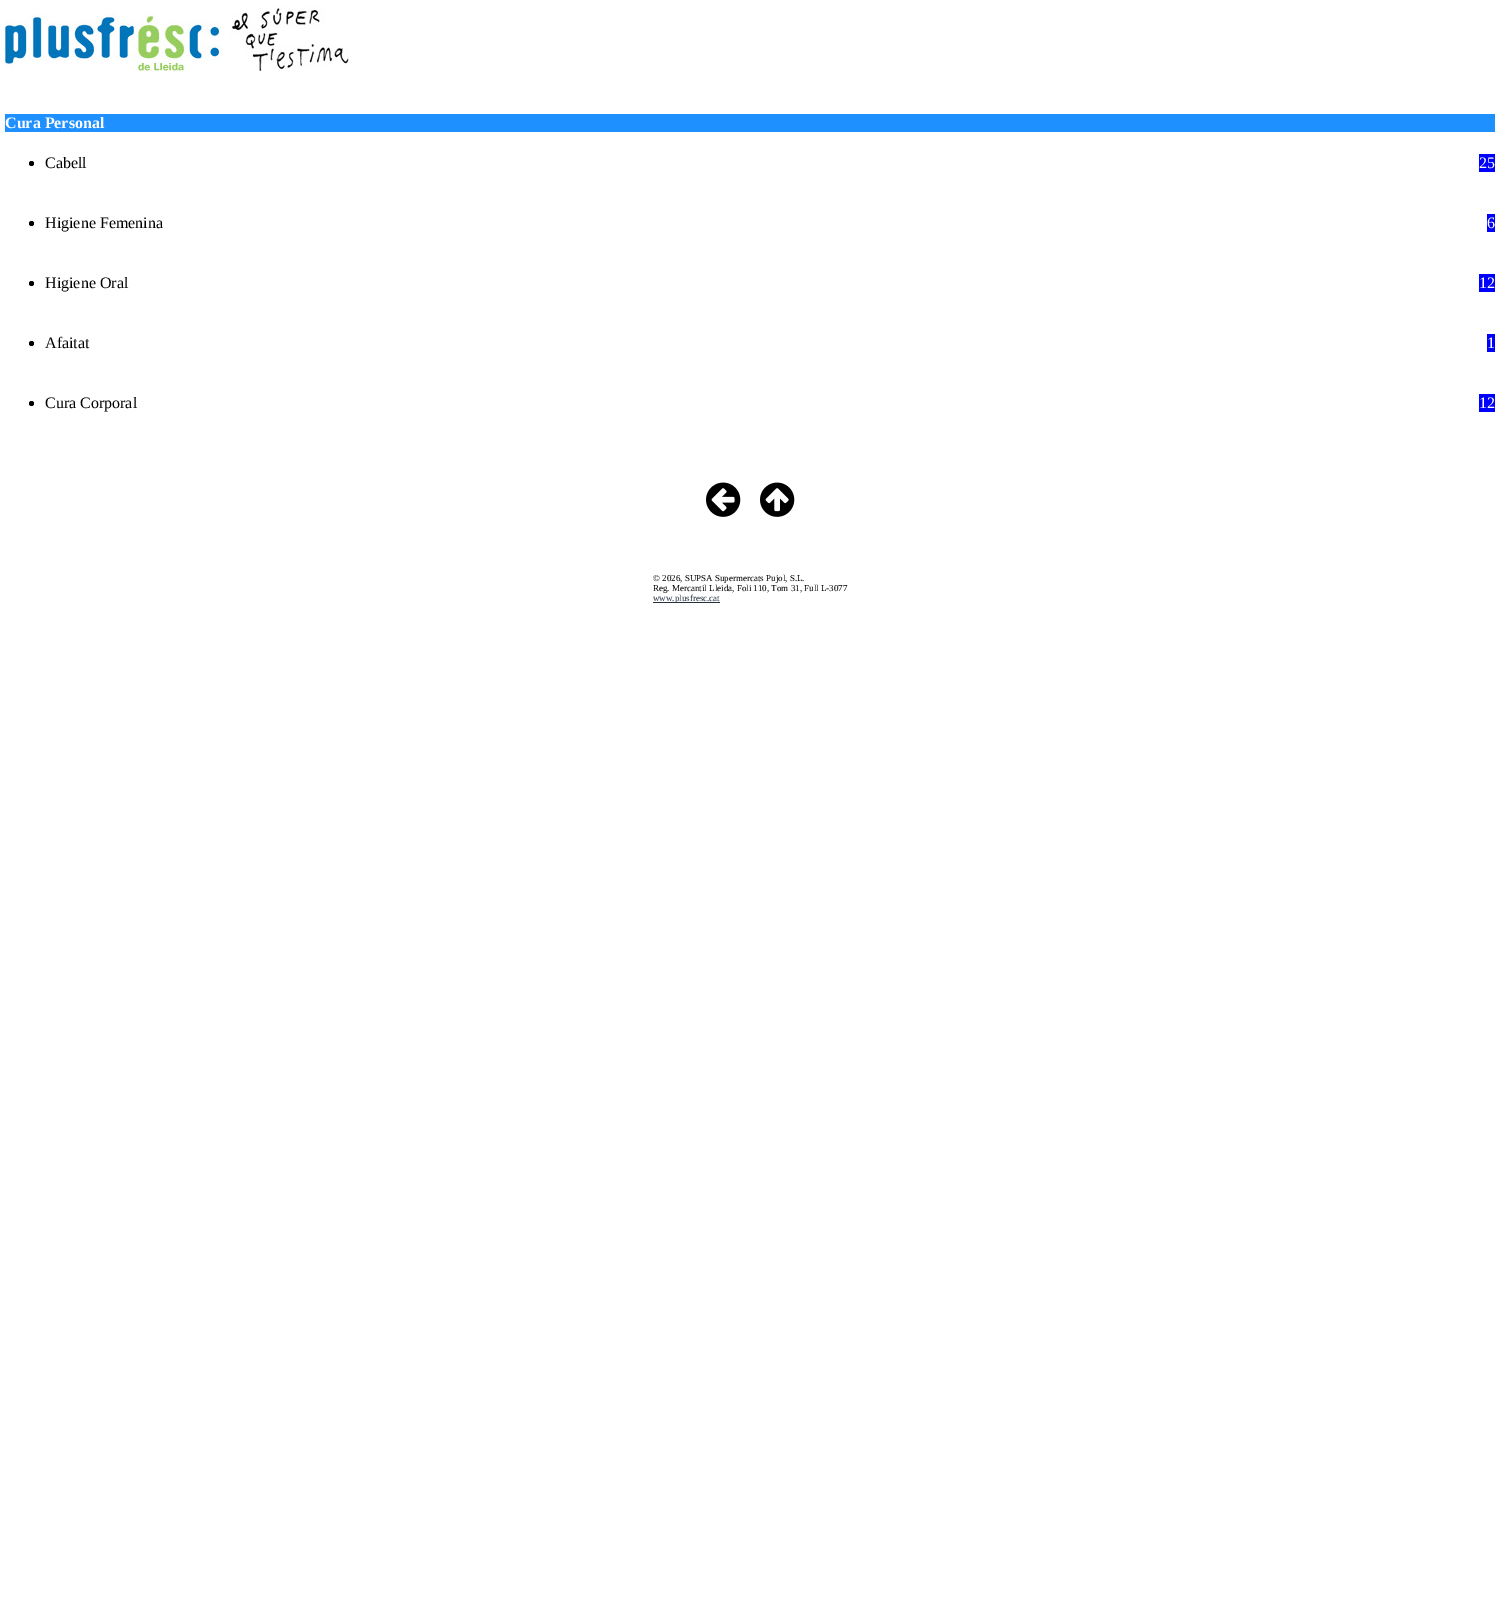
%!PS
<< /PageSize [1500 1600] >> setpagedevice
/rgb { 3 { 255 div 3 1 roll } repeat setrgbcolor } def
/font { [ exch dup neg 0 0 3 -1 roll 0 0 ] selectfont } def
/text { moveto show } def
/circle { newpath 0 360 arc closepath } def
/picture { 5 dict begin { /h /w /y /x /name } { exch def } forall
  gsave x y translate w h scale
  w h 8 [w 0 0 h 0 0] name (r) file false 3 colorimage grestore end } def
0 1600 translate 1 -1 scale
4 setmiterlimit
255 255 255 rgb
0 0 1500 1600 rectfill
(img_01.rgb) 5 6 344 65 picture
30 144 255 rgb
5 114 1490 18 rectfill
0 0 0 rgb
31.5 163.5 2.5 circle fill
0 0 255 rgb
1479 154 16 18 rectfill
0 0 0 rgb
31.5 223.5 2.5 circle fill
0 0 255 rgb
1487 214 8 18 rectfill
0 0 0 rgb
31.5 283.5 2.5 circle fill
0 0 255 rgb
1479 274 16 18 rectfill
0 0 0 rgb
31.5 343.5 2.5 circle fill
0 0 255 rgb
1487 334 8 18 rectfill
0 0 0 rgb
31.5 403.5 2.5 circle fill
0 0 255 rgb
1479 394 16 18 rectfill
(img_02.rgb) 706 482 35 35 picture
(img_03.rgb) 760 482 35 35 picture
37 50 64 rgb
653 602 67 1 rectfill
/LiberationSerif-Bold 16 font
255 255 255 rgb
(Cura Personal) 5 128 text
/LiberationSerif-Regular 16 font
0 0 0 rgb
(Cabell) 45 168 text
255 255 255 rgb
(25) 1479 168 text
0 0 0 rgb
(Higiene Femenina) 45 228 text
255 255 255 rgb
(6) 1487 228 text
0 0 0 rgb
(Higiene Oral) 45 288 text
255 255 255 rgb
(12) 1479 288 text
0 0 0 rgb
(Afaitat) 45 348 text
255 255 255 rgb
(1) 1487 348 text
0 0 0 rgb
(Cura Corporal) 45 408 text
255 255 255 rgb
(12) 1479 408 text
/LiberationSerif-Regular 9 font
0 0 0 rgb
(© 2026, SUPSA Supermercats Pujol, S.L.) 653 581 text
(Reg. Mercantil Lleida, Foli 110, Tom 31, Full L-3077) 653 591 text
37 50 64 rgb
(www.plusfresc.cat) 653 601 text
showpage
